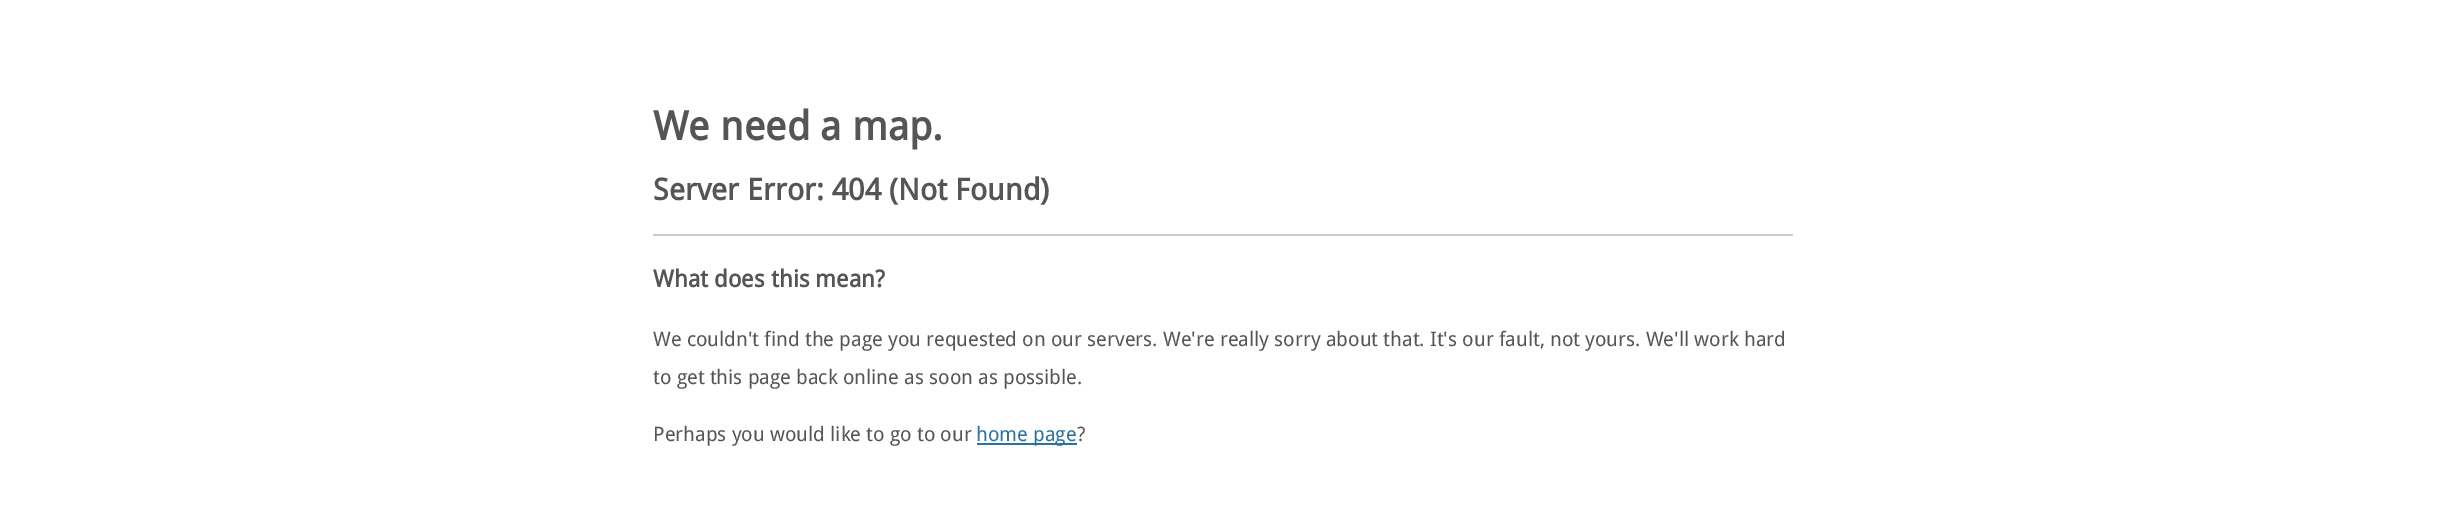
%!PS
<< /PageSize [2445 528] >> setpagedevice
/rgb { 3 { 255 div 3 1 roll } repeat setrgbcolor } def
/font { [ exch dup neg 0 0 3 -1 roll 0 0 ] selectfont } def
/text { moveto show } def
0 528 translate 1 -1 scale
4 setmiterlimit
255 255 255 rgb
0 0 2445 528 rectfill
204 204 204 rgb
653 234 1140 2 rectfill
41 114 163 rgb
977 443 100 2 rectfill
/DroidSans-Bold 40 font
85 85 85 rgb
(We need a map.) 653 140 text
/DroidSans-Bold 30 font
(Server Error: 404 \(Not Found\)) 653 200 text
/DroidSans-Bold 23.5 font
(What does this mean?) 653 287 text
/DroidSans-Regular 20 font
(We couldn't find the page you requested on our servers. We're really sorry about that. It's our fault, not yours. We'll work hard) 653 346 text
(to get this page back online as soon as possible.) 653 384 text
(Perhaps you would like to go to our) 653 441 text
41 114 163 rgb
(home page) 976 441 text
85 85 85 rgb
(?) 1077 441 text
showpage
